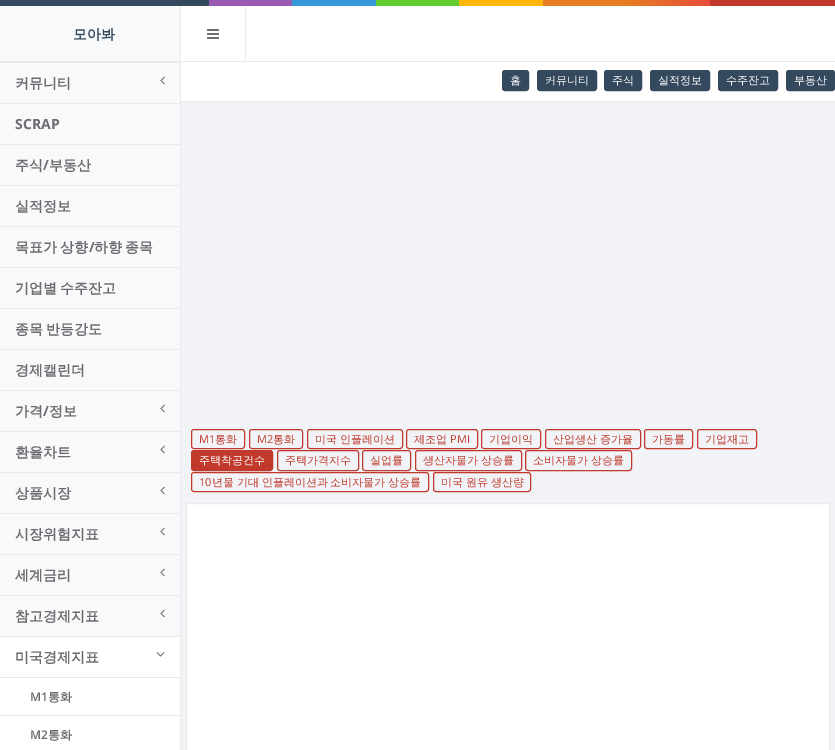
%!PS
<< /PageSize [835 750] >> setpagedevice
/rgb { 3 { 255 div 3 1 roll } repeat setrgbcolor } def
/font { [ exch dup neg 0 0 3 -1 roll 0 0 ] selectfont } def
/text { moveto show } def
/roundrect { 5 dict begin { /r /h /w /y /x } { exch def } forall
  x r add y moveto x w add y 2 copy h add r arct x w add y h add x 1 index r arct
  x y h add x y r arct x y 2 copy exch w add exch r arct closepath end } def
/picture { 5 dict begin { /h /w /y /x /name } { exch def } forall
  gsave x y translate w h scale
  w h 8 [w 0 0 h 0 0] name (r) file false 3 colorimage grestore end } def
0 750 translate 1 -1 scale
4 setmiterlimit
255 255 255 rgb
0 0 835 750 rectfill
234 234 234 rgb
181 61 654 1 rectfill
gsave 0 0 moveto 835 0 rlineto 0 6 rlineto -835 0 rlineto closepath clip newpath
<< /ShadingType 2 /ColorSpace /DeviceRGB /Coords [0 3 835 3] /Extend [true true] /Function << /FunctionType 3 /Domain [0 1] /Functions [<< /FunctionType 2 /Domain [0 1] /C0 [0.204 0.286 0.369] /C1 [0.204 0.286 0.369] /N 1 >> << /FunctionType 2 /Domain [0 1] /C0 [0.608 0.349 0.714] /C1 [0.608 0.349 0.714] /N 1 >> << /FunctionType 2 /Domain [0 1] /C0 [0.204 0.596 0.859] /C1 [0.204 0.596 0.859] /N 1 >> << /FunctionType 2 /Domain [0 1] /C0 [0.384 0.796 0.192] /C1 [0.384 0.796 0.192] /N 1 >> << /FunctionType 2 /Domain [0 1] /C0 [1 0.714 0.024] /C1 [1 0.714 0.024] /N 1 >> << /FunctionType 2 /Domain [0 1] /C0 [0.902 0.494 0.133] /C1 [0.902 0.494 0.133] /N 1 >> << /FunctionType 2 /Domain [0 1] /C0 [0.902 0.494 0.133] /C1 [0.906 0.298 0.235] /N 1 >> << /FunctionType 2 /Domain [0 1] /C0 [0.753 0.224 0.169] /C1 [0.753 0.224 0.169] /N 1 >>] /Bounds [0.25 0.35 0.45 0.55 0.65 0.75 0.85] /Encode [0 1 0 1 0 1 0 1 0 1 0 1 0 1 0 1] >> >> shfill grestore
247 249 250 rgb
0 6 180 55 rectfill
234 234 234 rgb
0 61 180 2 rectfill
245 6 1 59 rectfill
180 6 1 744 rectfill
(img_01.rgb) 207 29 12 10 picture
247 249 250 rgb
0 63 180 573 rectfill
234 234 234 rgb
0 103 180 1 rectfill
(img_02.rgb) 160 76 5 9 picture
0 144 180 1 rectfill
0 185 180 1 rectfill
0 226 180 1 rectfill
0 267 180 1 rectfill
0 308 180 1 rectfill
0 349 180 1 rectfill
0 390 180 1 rectfill
0 431 180 1 rectfill
(img_02.rgb) 160 404 5 9 picture
0 472 180 1 rectfill
(img_02.rgb) 160 445 5 9 picture
0 513 180 1 rectfill
(img_02.rgb) 160 486 5 9 picture
0 554 180 1 rectfill
(img_02.rgb) 160 527 5 9 picture
0 595 180 1 rectfill
(img_02.rgb) 160 568 5 9 picture
0 636 180 1 rectfill
(img_02.rgb) 160 609 5 9 picture
(img_03.rgb) 156 652 9 5 picture
0 677 180 1 rectfill
0 715 180 1 rectfill
241 243 246 rgb
181 102 654 648 rectfill
255 255 255 rgb
245 62 1 3 rectfill
234 234 234 rgb
181 101 654 1 rectfill
52 73 94 rgb
502.5 70.5 26 20 2.5 roundrect gsave fill grestore
stroke
537.5 70.5 59 20 2.5 roundrect gsave fill grestore
stroke
604.5 70.5 37 20 2.5 roundrect gsave fill grestore
stroke
650.5 70.5 59 20 2.5 roundrect gsave fill grestore
stroke
718.5 70.5 59 20 2.5 roundrect gsave fill grestore
stroke
786.5 70.5 48 20 2.5 roundrect gsave fill grestore
stroke
192 57 43 rgb
191.5 429.5 53 19 2.5 roundrect stroke
249.5 429.5 53 19 2.5 roundrect stroke
307.5 429.5 95 19 2.5 roundrect stroke
406.5 429.5 71 19 2.5 roundrect stroke
481.5 429.5 59 19 2.5 roundrect stroke
545.5 429.5 95 19 2.5 roundrect stroke
644.5 429.5 48 19 2.5 roundrect stroke
697.5 429.5 59 19 2.5 roundrect stroke
191.5 450.5 81 20 2.5 roundrect gsave fill grestore
stroke
277.5 450.5 81 20 2.5 roundrect stroke
362.5 450.5 48 20 2.5 roundrect stroke
415.5 450.5 106 20 2.5 roundrect stroke
525.5 450.5 106 20 2.5 roundrect stroke
191.5 472.5 237 19 2.5 roundrect stroke
433.5 472.5 97 19 2.5 roundrect stroke
255 255 255 rgb
186.5 503.5 643 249 1.5 roundrect gsave fill grestore
234 234 234 rgb
stroke
/WenQuanYiZenHei-Bold 14 font
52 73 94 rgb
(모아봐) 73 39 text
106 108 111 rgb
(커뮤니티) 15 88 text
/OpenSans-Bold 14 font
(SCRAP) 15 129 text
/WenQuanYiZenHei-Bold 14 font
(주식) 15 170 text
/OpenSans-Bold 14 font
(/) 43 170 text
/WenQuanYiZenHei-Bold 14 font
(부동산) 49 170 text
(실적정보) 15 211 text
15 252 moveto -1 0 32 (목표가 상향) widthshow
/OpenSans-Bold 14 font
(/) 89 252 text
/WenQuanYiZenHei-Bold 14 font
94 252 moveto -1 0 32 (하향 종목) widthshow
15 293 moveto -1 0 32 (기업별 수주잔고) widthshow
15 334 moveto -1 0 32 (종목 반등강도) widthshow
(경제캘린더) 15 375 text
(가격) 15 416 text
/OpenSans-Bold 14 font
(/) 43 416 text
/WenQuanYiZenHei-Bold 14 font
(정보) 49 416 text
(환율차트) 15 457 text
(상품시장) 15 498 text
(시장위험지표) 15 539 text
(세계금리) 15 580 text
(참고경제지표) 15 621 text
(미국경제지표) 15 662 text
/OpenSans-SemiBold 12 font
(M1) 30 701 text
/WenQuanYiZenHei-Bold 12 font
(통화) 48 701 text
/OpenSans-SemiBold 12 font
(M2) 30 739 text
/WenQuanYiZenHei-Bold 12 font
(통화) 48 739 text
/WenQuanYiZenHei-Medium 11 font
255 255 255 rgb
(홈) 510 84 text
(커뮤니티) 545 84 text
(주식) 612 84 text
(실적정보) 658 84 text
(수주잔고) 726 84 text
(부동산) 794 84 text
/OpenSans-Regular 11 font
192 57 43 rgb
(M1) 199 443 text
/WenQuanYiZenHei-Medium 11 font
(통화) 215 443 text
/OpenSans-Regular 11 font
(M2) 257 443 text
/WenQuanYiZenHei-Medium 11 font
(통화) 273 443 text
315 443 moveto -0.5 0 32 (미국 인플레이션) widthshow
(제조업) 414 443 text
/OpenSans-Regular 11 font
(PMI) 450 443 text
/WenQuanYiZenHei-Medium 11 font
(기업이익) 489 443 text
553 443 moveto -0.5 0 32 (산업생산 증가율) widthshow
(가동률) 652 443 text
(기업재고) 705 443 text
255 255 255 rgb
(주택착공건수) 199 464 text
192 57 43 rgb
(주택가격지수) 285 464 text
(실업률) 370 464 text
423 464 moveto -0.5 0 32 (생산자물가 상승률) widthshow
533 464 moveto -0.5 0 32 (소비자물가 상승률) widthshow
/OpenSans-Regular 11 font
(10) 199 486 text
/WenQuanYiZenHei-Medium 11 font
212 486 moveto -0.5 0 32 (년물 기대 인플레이션과 소비자물가 상승률) widthshow
441 486 moveto -0.5 0 32 (미국 원유 생산량) widthshow
showpage
